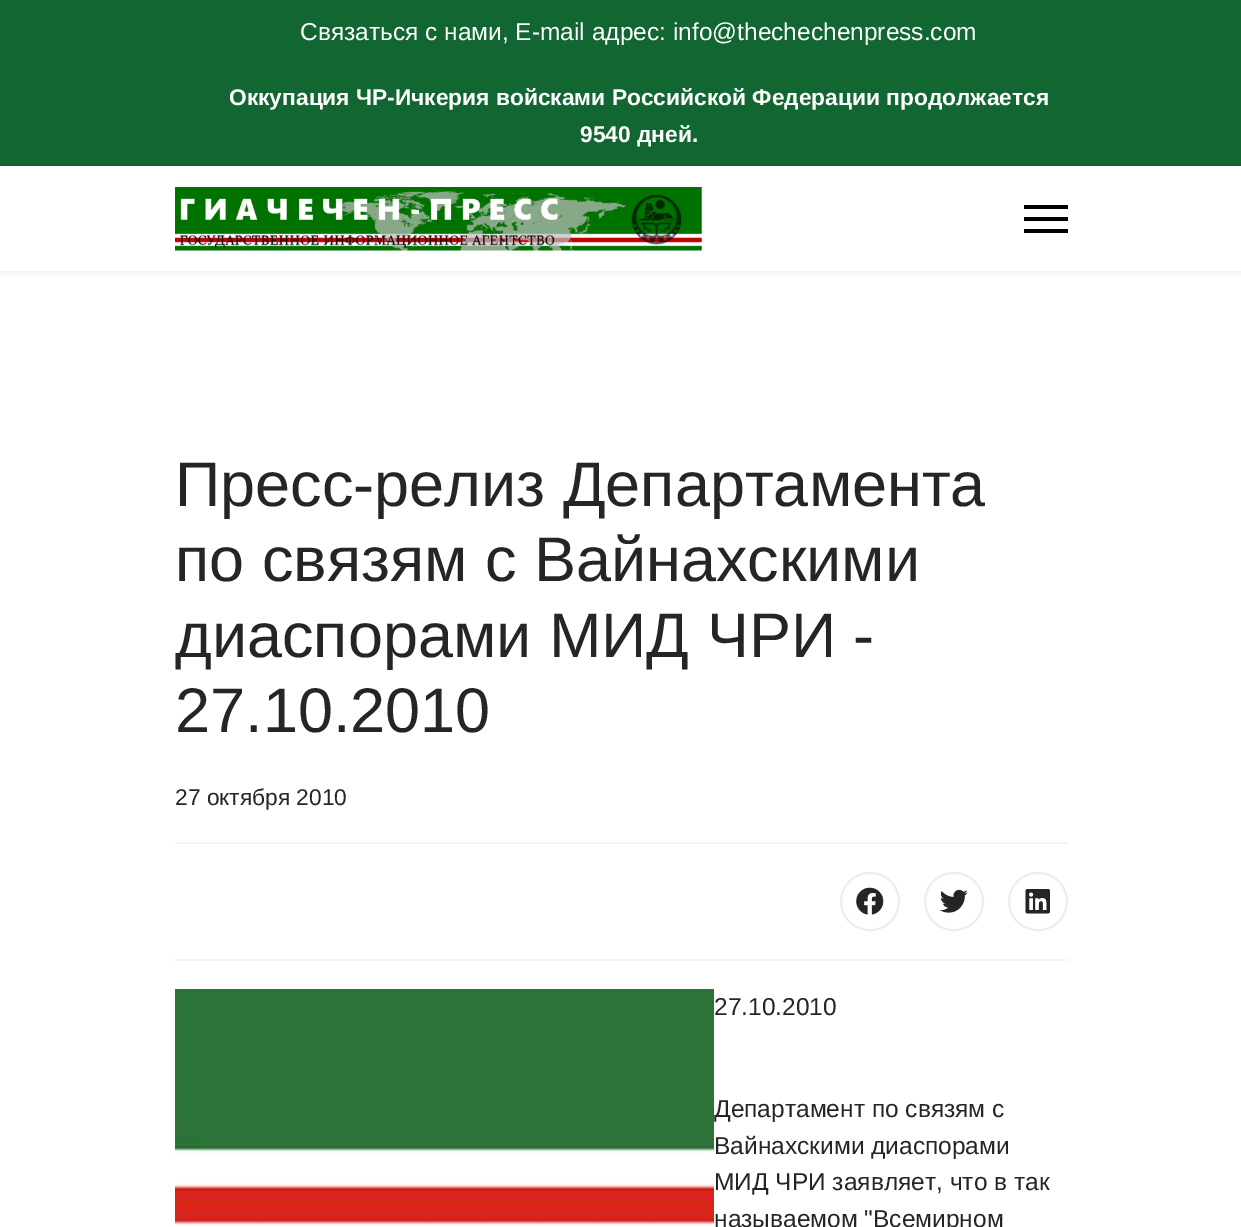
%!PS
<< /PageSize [1241 1227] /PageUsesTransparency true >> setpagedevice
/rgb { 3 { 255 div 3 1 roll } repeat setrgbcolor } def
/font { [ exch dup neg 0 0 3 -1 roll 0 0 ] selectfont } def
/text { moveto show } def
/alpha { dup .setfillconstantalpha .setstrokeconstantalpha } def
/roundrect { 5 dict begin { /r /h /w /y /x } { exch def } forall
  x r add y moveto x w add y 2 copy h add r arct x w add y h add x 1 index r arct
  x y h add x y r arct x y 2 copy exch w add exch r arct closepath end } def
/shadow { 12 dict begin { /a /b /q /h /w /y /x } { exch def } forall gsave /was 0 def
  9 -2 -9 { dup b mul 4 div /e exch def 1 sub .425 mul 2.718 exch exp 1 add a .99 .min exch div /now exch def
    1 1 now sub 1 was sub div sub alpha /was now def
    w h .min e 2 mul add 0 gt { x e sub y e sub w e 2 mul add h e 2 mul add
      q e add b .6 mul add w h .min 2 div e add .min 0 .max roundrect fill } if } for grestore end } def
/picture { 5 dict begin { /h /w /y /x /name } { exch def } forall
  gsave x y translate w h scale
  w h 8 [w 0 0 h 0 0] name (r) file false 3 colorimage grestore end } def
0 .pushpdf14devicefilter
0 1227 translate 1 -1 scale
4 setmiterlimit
255 255 255 rgb
0 0 1241 1227 rectfill
18 102 50 rgb
0 0 1241 166 rectfill
0 0 0 rgb
0 166 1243 105 0 3.5 0.1 shadow
255 255 255 rgb
0 166 1241 105 rectfill
(img_01.rgb) 175 187 527 64 picture
0 0 0 rgb
1024 205 44 4 rectfill
1024 217 44 4 rectfill
1024 229 44 4 rectfill
245 245 245 rgb
175 842 893 2 rectfill
175 959 893 2 rectfill
237 237 237 rgb
2 setlinewidth
841 873 58 57 28.5 roundrect stroke
(img_02.rgb) 856 887 28 28 picture
925 873 58 57 28.5 roundrect stroke
(img_03.rgb) 940 889 28 24 picture
1009 873 58 57 28.5 roundrect stroke
(img_04.rgb) 1025 889 25 25 picture
(img_05.rgb) 175 989 539 237 picture
/LiberationSans-Regular 24.5 font
255 255 255 rgb
(Связаться с нами, E-mail адрес: info@thechechenpress.com) 300 40 text
/LiberationSans-Bold 22.75 font
(Оккупация ЧР-Ичкерия войсками Российской Федерации продолжается) 229 105 text
(9540 дней.) 580 142 text
/LiberationSans-Regular 63 font
37 37 37 rgb
(Пресс-релиз Департамента) 175 506 text
(по связям с Вайнахскими) 175 581 text
(диаспорами МИД ЧРИ -) 175 657 text
(27.10.2010) 175 732 text
/LiberationSans-Regular 22.75 font
(27 октября 2010) 175 805 text
/LiberationSans-Regular 24.5 font
(27.10.2010) 714 1015 text
(Департамент по связям с) 714 1117 text
(Вайнахскими диаспорами) 714 1154 text
(МИД ЧРИ заявляет, что в так) 714 1190 text
(называемом "Всемирном) 714 1227 text
.poppdf14devicefilter showpage
